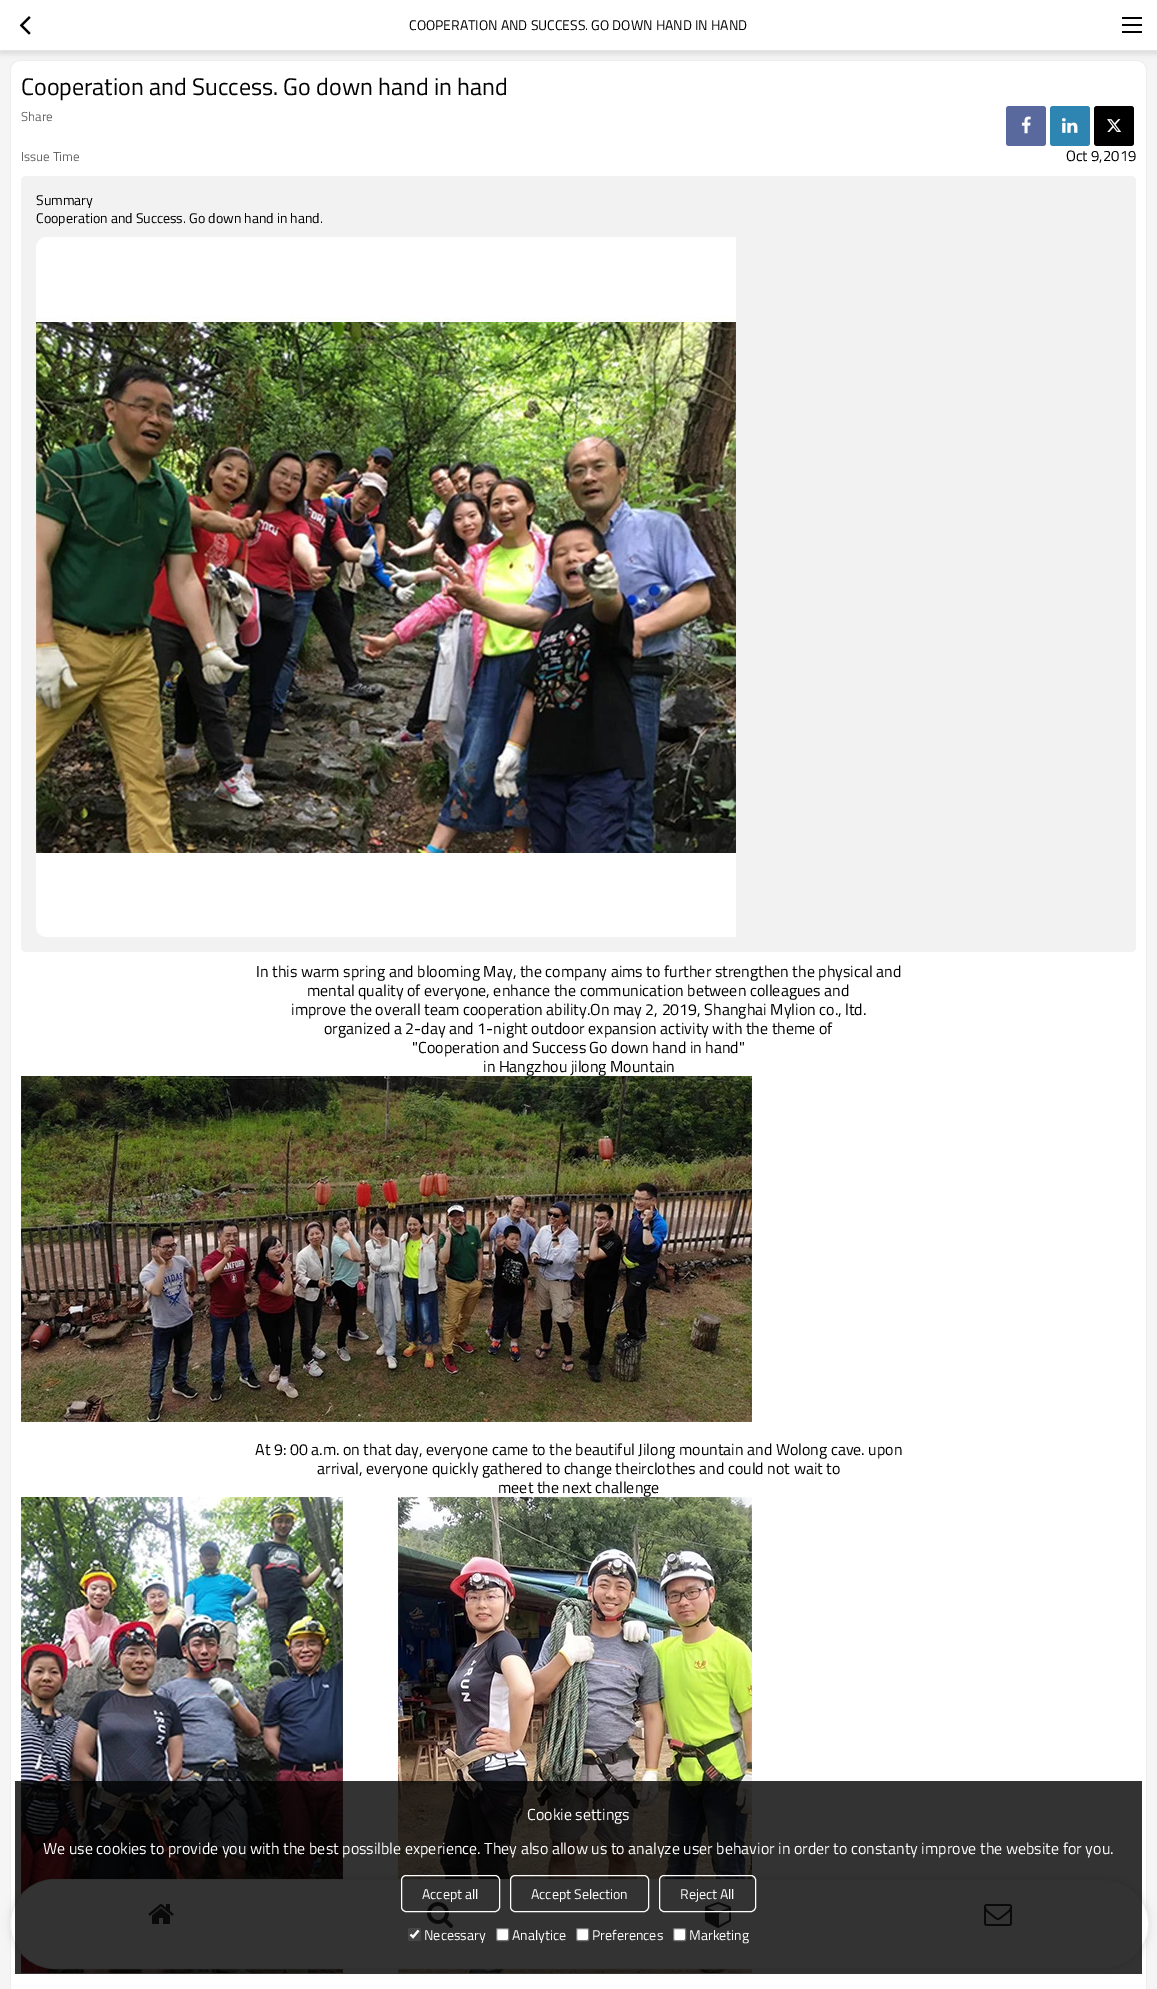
%!PS
<< /PageSize [1157 1989] /PageUsesTransparency true >> setpagedevice
/rgb { 3 { 255 div 3 1 roll } repeat setrgbcolor } def
/font { [ exch dup neg 0 0 3 -1 roll 0 0 ] selectfont } def
/text { moveto show } def
/alpha { dup .setfillconstantalpha .setstrokeconstantalpha } def
/roundrect { 5 dict begin { /r /h /w /y /x } { exch def } forall
  x r add y moveto x w add y 2 copy h add r arct x w add y h add x 1 index r arct
  x y h add x y r arct x y 2 copy exch w add exch r arct closepath end } def
/shadow { 12 dict begin { /a /b /q /h /w /y /x } { exch def } forall gsave /was 0 def
  9 -2 -9 { dup b mul 4 div /e exch def 1 sub .425 mul 2.718 exch exp 1 add a .99 .min exch div /now exch def
    1 1 now sub 1 was sub div sub alpha /was now def
    w h .min e 2 mul add 0 gt { x e sub y e sub w e 2 mul add h e 2 mul add
      q e add b .6 mul add w h .min 2 div e add .min 0 .max roundrect fill } if } for grestore end } def
/picture { 5 dict begin { /h /w /y /x /name } { exch def } forall
  gsave x y translate w h scale
  w h 8 [w 0 0 h 0 0] name (r) file false 3 colorimage grestore end } def
0 .pushpdf14devicefilter
0 1989 translate 1 -1 scale
4 setmiterlimit
245 245 245 rgb
0 0 1157 1989 rectfill
255 255 255 rgb
10 60 1137 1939 10 roundrect fill
238 238 238 rgb
20 60 moveto 1117 0 rlineto 6 0 10 4 10 10 rcurveto 0 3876 rlineto 0 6 -4 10 -10 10 rcurveto -1117 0 rlineto -6 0 -10 -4 -10 -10 rcurveto 0 -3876 rlineto 0 -6 4 -10 10 -10 rcurveto closepath 20 61 moveto 1117 0 rlineto 5 0 9 4 9 9 rcurveto 0 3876 rlineto 0 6 -4 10 -9 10 rcurveto -1117 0 rlineto -5 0 -9 -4 -9 -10 rcurveto 0 -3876 rlineto 0 -5 4 -9 9 -9 rcurveto closepath eofill
0 0 0 rgb
0 3 1157 51 0 2.5 0.1 shadow
255 255 255 rgb
0 0 1157 50 rectfill
229 229 229 rgb
0 50 1157 1 rectfill
(img_01.rgb) 19 16 12 19 picture
0 0 0 rgb
1122 17 20 2 rectfill
1122 24 20 2 rectfill
1122 31 20 2 rectfill
89 105 158 rgb
1006 106 40 40 3 roundrect fill
(img_02.rgb) 1021 116 10 18 picture
47 133 178 rgb
1050 106 40 40 3 roundrect fill
(img_03.rgb) 1062 118 16 15 picture
0 0 0 rgb
1094 106 40 40 3 roundrect fill
(img_04.rgb) 1107 119 15 13 picture
242 242 242 rgb
21 176 1115 776 5 roundrect fill
(img_05.rgb) 36 237 700 700 picture
(img_06.rgb) 21 1076 731 346 picture
(img_07.rgb) 21 1497 731 476 picture
0 0 0 rgb
10 1879 1139 90 45 4 0.1 shadow
255 255 255 rgb
10.5 1879.5 1138 89 44.5 roundrect gsave fill grestore
238 238 238 rgb
stroke
(img_08.rgb) 148 1904 26 20 picture
(img_09.rgb) 427 1902 26 26 picture
(img_10.rgb) 705 1902 26 26 picture
(img_11.rgb) 984 1904 28 22 picture
0.8 alpha
0 0 0 rgb
15 1781 1127 193 rectfill
1 alpha
255 255 255 rgb
401.5 1875.5 98 36 4.5 roundrect stroke
510.5 1875.5 138 36 4.5 roundrect stroke
659.5 1875.5 96 36 4.5 roundrect stroke
71 71 71 rgb
408 1928 13 13 2 roundrect fill
255 255 255 rgb
2.1 setlinewidth
410.5 1934.5 moveto 2.5 2.5 rlineto 5.5 -6.5 rlineto stroke
496.5 1928.5 12 12 1.5 roundrect gsave fill grestore
118 118 118 rgb
1 setlinewidth
stroke
255 255 255 rgb
576.5 1928.5 12 12 1.5 roundrect gsave fill grestore
118 118 118 rgb
stroke
255 255 255 rgb
673.5 1928.5 12 12 1.5 roundrect gsave fill grestore
118 118 118 rgb
stroke
/TitilliumWeb-Regular 14 font
0 0 0 rgb
(COOPERATION AND SUCCESS. GO DOWN HAND IN HAND) 409 30 text
/TitilliumWeb-Regular 24 font
(Cooperation and Success. Go down hand in hand) 21 95 text
/TitilliumWeb-Regular 13 font
102 102 102 rgb
(Share) 21 121 text
(Issue Time) 21 161 text
/TitilliumWeb-Regular 15 font
0 0 0 rgb
(Oct 9,2019) 1066 161 text
/TitilliumWeb-Regular 14 font
(Summary) 36 205 text
(Cooperation and Success. Go down hand in hand.) 36 223 text
/TitilliumWeb-Regular 16 font
(In this warm spring and blooming May, the company aims to further strengthen the physical and) 256 977 text
(mental quality of everyone, enhance the communication between colleagues and) 307 996 text
(improve the overall team cooperation ability.On may 2, 2019, Shanghai Mylion co., ltd.) 291 1015 text
(organized a 2-day and 1-night outdoor expansion activity with the theme of) 324 1034 text
("Cooperation and Success Go down hand in hand") 412 1053 text
(in Hangzhou jilong Mountain) 483 1072 text
(At 9: 00 a.m. on that day, everyone came to the beautiful Jilong mountain and Wolong cave. upon) 255 1455 text
(arrival, everyone quickly gathered to change theirclothes and could not wait to) 317 1474 text
(meet the next challenge) 498 1493 text
255 255 255 rgb
(Cookie settings) 527 1820 text
(We use cookies to provide you with the best possilble experience. They also allow us to analyze user behavior in order to constanty improve the website for you.) 43 1854 text
/TitilliumWeb-Regular 14 font
(Accept all) 422 1899 text
(Accept Selection) 531 1899 text
(Reject All) 680 1899 text
(Necessary) 424 1940 text
(Analytice) 512 1940 text
(Preferences) 592 1940 text
(Marketing) 689 1940 text
.poppdf14devicefilter showpage
